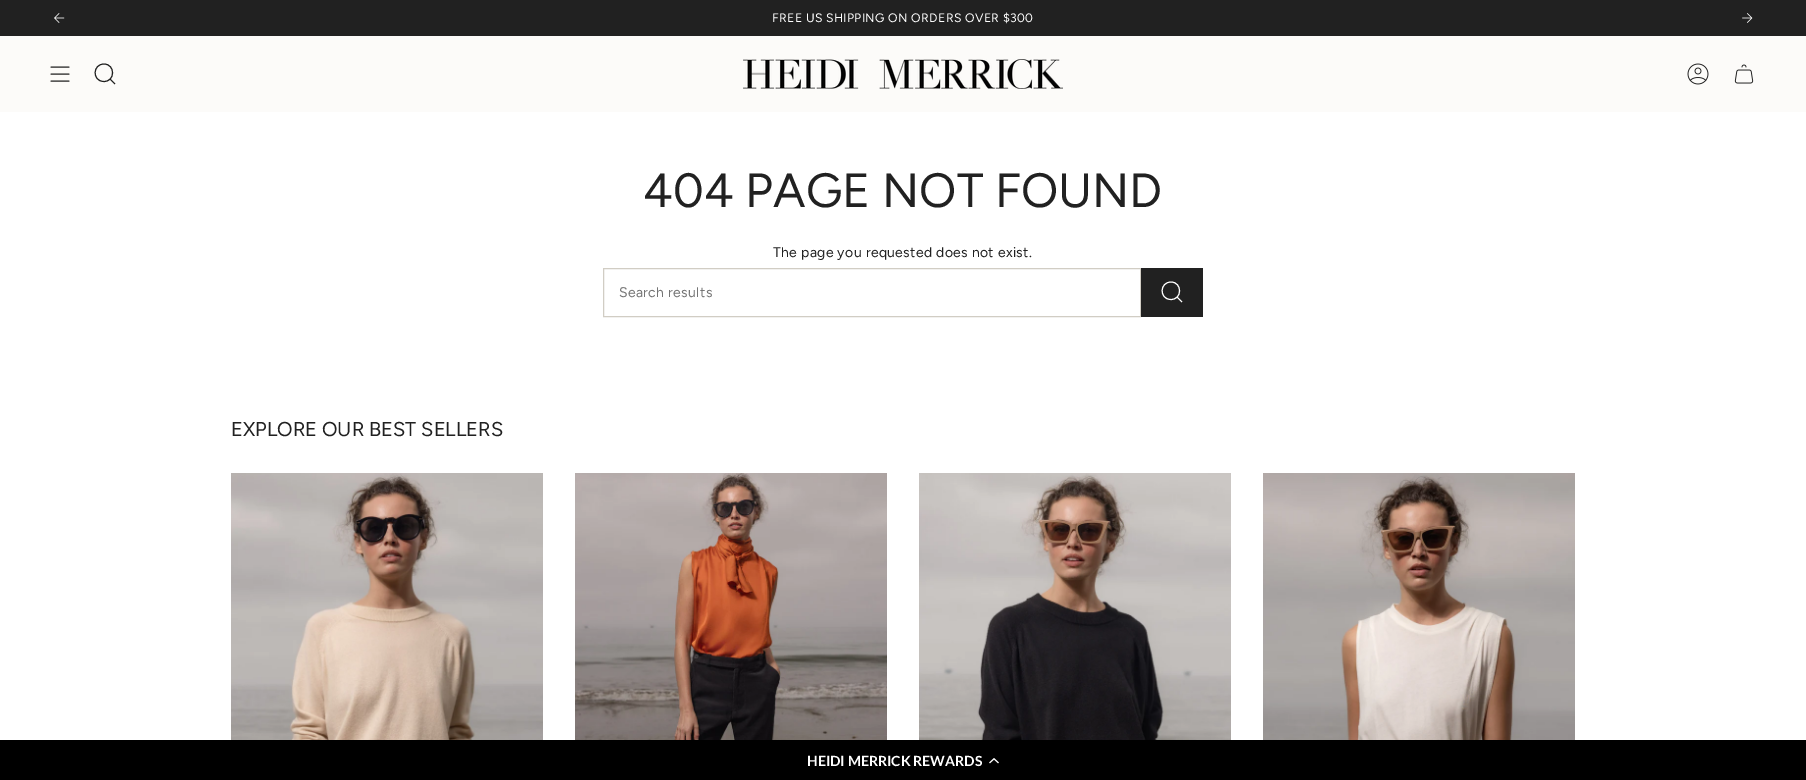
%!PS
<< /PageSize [1806 780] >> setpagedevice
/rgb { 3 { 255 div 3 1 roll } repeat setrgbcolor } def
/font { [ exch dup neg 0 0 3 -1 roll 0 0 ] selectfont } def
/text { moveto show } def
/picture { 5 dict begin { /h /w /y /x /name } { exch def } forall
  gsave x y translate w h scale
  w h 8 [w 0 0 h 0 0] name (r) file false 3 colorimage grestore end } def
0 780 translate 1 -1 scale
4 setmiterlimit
255 255 255 rgb
0 0 1806 780 rectfill
33 33 33 rgb
0 0 1806 36 rectfill
(img_01.rgb) 54 13 11 10 picture
(img_02.rgb) 1742 13 11 10 picture
252 251 249 rgb
0 36 1806 76 rectfill
33 33 33 rgb
1 setlinecap
1 setlinejoin
51 67 moveto 18 0 rlineto 51 74 moveto 18 0 rlineto 51 81 moveto 18 0 rlineto stroke
0 setlinecap
0 setlinejoin
104 64 moveto 11.5 0 11.5 18 -0.5 17.5 rcurveto -11.5 -0.5 -11 -17.5 0.5 -17.5 rcurveto closepath 110 79 moveto 5 5 rlineto stroke
(img_03.rgb) 743 59 320 30 picture
(img_04.rgb) 1687 63 22 22 picture
(img_05.rgb) 1734 64 20 20 picture
209 205 196 rgb
603.5 268.5 537 48 rectstroke
33 33 33 rgb
1141 268 62 49 rectfill
255 255 255 rgb
1171 282 moveto 11.5 0 11.5 18 -0.5 17.5 rcurveto -11.5 -0.5 -11 -17.5 0.5 -17.5 rcurveto closepath 1177 297 moveto 5 5 rlineto stroke
(img_06.rgb) 231 473 312 267 picture
(img_07.rgb) 575 473 312 267 picture
(img_08.rgb) 919 473 312 267 picture
(img_09.rgb) 1263 473 312 267 picture
0 0 0 rgb
0 740 1806 40 rectfill
(img_10.rgb) 989 758 10 6 picture
/Figtree-Regular 12.25 font
255 255 255 rgb
772 22 moveto 0.35 0 (FREE US SHIPPING ON ORDERS OVER $300) ashow
/Figtree-Regular 48 font
33 33 33 rgb
(404 PAGE NOT FOUND) 643 207 text
/Figtree-Regular 14 font
773 257 moveto 0.35 0 (The page you requested does not exist.) ashow
117 117 117 rgb
619 297 moveto 0.35 0 (Search results) ashow
/Figtree-Regular 20 font
33 33 33 rgb
(EXPLORE OUR BEST SELLERS) 231 436 text
/Lato-Bold 14 font
255 255 255 rgb
(HEIDI MERRICK REWARDS) 807 766 text
showpage
